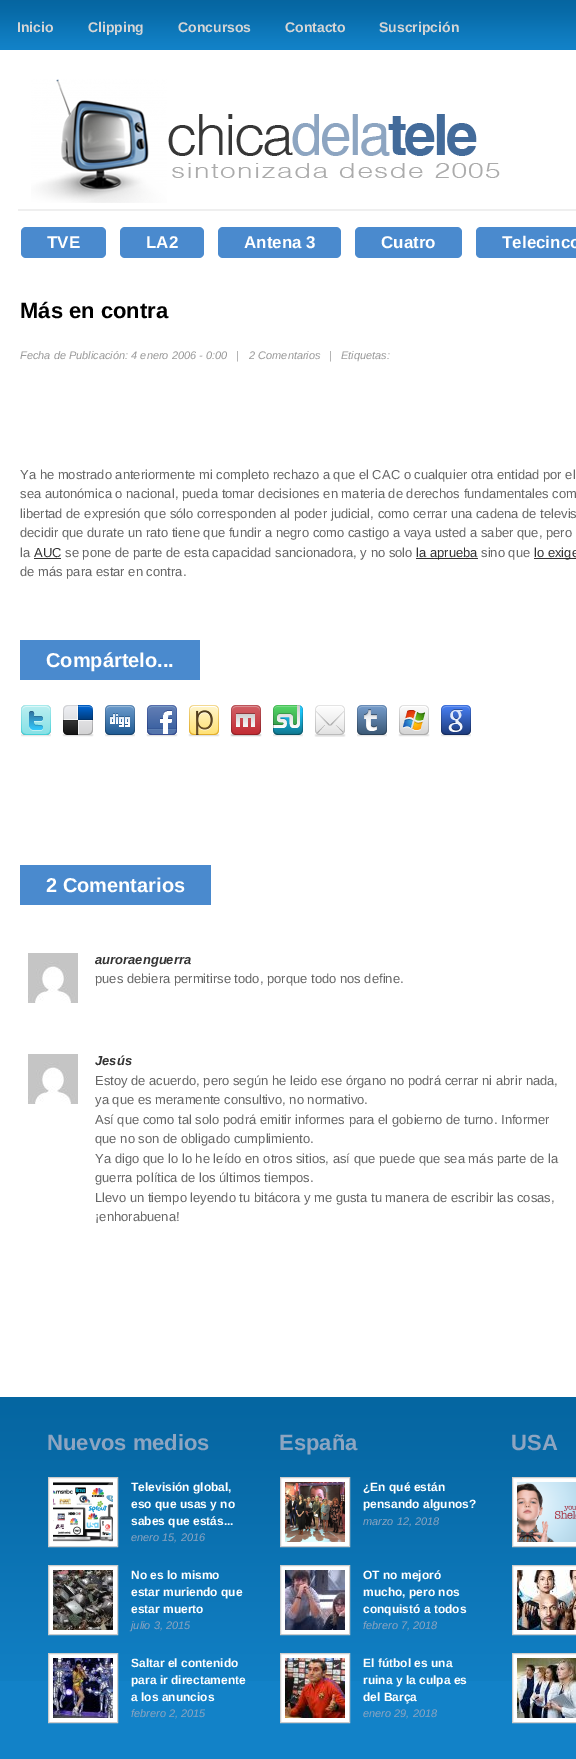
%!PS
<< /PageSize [576 1759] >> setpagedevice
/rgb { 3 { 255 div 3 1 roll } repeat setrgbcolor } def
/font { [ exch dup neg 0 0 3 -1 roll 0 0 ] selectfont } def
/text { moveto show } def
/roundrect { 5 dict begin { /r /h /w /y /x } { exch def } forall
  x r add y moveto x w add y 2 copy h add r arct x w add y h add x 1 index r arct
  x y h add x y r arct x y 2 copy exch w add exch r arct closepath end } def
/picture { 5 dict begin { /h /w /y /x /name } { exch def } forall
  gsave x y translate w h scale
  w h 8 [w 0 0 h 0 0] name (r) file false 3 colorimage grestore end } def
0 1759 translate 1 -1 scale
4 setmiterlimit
255 255 255 rgb
0 0 576 1759 rectfill
(img_01.rgb) 0 0 576 50 picture
239 239 239 rgb
18 209 558 2 rectfill
(img_02.rgb) 31 79 469 124 picture
74 138 206 rgb
21 227 85 31 5 roundrect fill
120 227 84 31 5 roundrect fill
218 227 123 31 5 roundrect fill
355 227 107 31 5 roundrect fill
481 227 moveto 95 0 rlineto 0 31 rlineto -95 0 rlineto -3 0 -5 -2 -5 -5 rcurveto 0 -21 rlineto 0 -3 2 -5 5 -5 rcurveto closepath fill
51 51 51 rgb
34 558 27 1 rectfill
416 558 62 1 rectfill
534 558 42 1 rectfill
74 138 206 rgb
20 640 180 40 rectfill
(img_03.rgb) 21 705 30 32 picture
(img_04.rgb) 62 705 32 32 picture
(img_05.rgb) 105 705 30 32 picture
(img_06.rgb) 146 705 32 32 picture
(img_07.rgb) 188 705 32 32 picture
(img_08.rgb) 230 705 32 32 picture
(img_09.rgb) 273 705 30 32 picture
(img_10.rgb) 314 705 32 32 picture
(img_11.rgb) 357 705 30 32 picture
(img_12.rgb) 398 705 32 32 picture
(img_13.rgb) 441 705 30 32 picture
20 865 191 40 rectfill
(img_14.rgb) 28 953 50 50 picture
(img_14.rgb) 28 1054 50 50 picture
18 130 200 rgb
0 1681 576 78 rectfill
(img_15.rgb) 0 1397 576 284 picture
255 255 255 rgb
48.5 1477.5 moveto 69 0 rlineto 0 69 rlineto -69 0 rlineto closepath gsave fill grestore
204 204 204 rgb
stroke
(img_16.rgb) 53 1482 60 60 picture
255 255 255 rgb
48.5 1565.5 moveto 69 0 rlineto 0 69 rlineto -69 0 rlineto closepath gsave fill grestore
204 204 204 rgb
stroke
(img_17.rgb) 53 1570 60 60 picture
255 255 255 rgb
48.5 1653.5 moveto 69 0 rlineto 0 69 rlineto -69 0 rlineto closepath gsave fill grestore
204 204 204 rgb
stroke
(img_18.rgb) 53 1658 60 60 picture
255 255 255 rgb
280.5 1477.5 moveto 69 0 rlineto 0 69 rlineto -69 0 rlineto closepath gsave fill grestore
204 204 204 rgb
stroke
(img_19.rgb) 285 1482 60 60 picture
255 255 255 rgb
280.5 1565.5 moveto 69 0 rlineto 0 69 rlineto -69 0 rlineto closepath gsave fill grestore
204 204 204 rgb
stroke
(img_20.rgb) 285 1570 60 60 picture
255 255 255 rgb
280.5 1653.5 moveto 69 0 rlineto 0 69 rlineto -69 0 rlineto closepath gsave fill grestore
204 204 204 rgb
stroke
(img_21.rgb) 285 1658 60 60 picture
255 255 255 rgb
512.5 1477.5 moveto 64 0 rlineto 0 69 rlineto -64 0 rlineto closepath gsave fill grestore
204 204 204 rgb
stroke
(img_22.rgb) 517 1482 59 60 picture
255 255 255 rgb
512.5 1565.5 moveto 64 0 rlineto 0 69 rlineto -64 0 rlineto closepath gsave fill grestore
204 204 204 rgb
stroke
(img_23.rgb) 517 1570 59 60 picture
255 255 255 rgb
512.5 1653.5 moveto 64 0 rlineto 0 69 rlineto -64 0 rlineto closepath gsave fill grestore
204 204 204 rgb
stroke
(img_24.rgb) 517 1658 59 60 picture
/LiberationSans-Bold 14 font
213 213 213 rgb
(Inicio) 17 32 text
(Clipping) 88 32 text
(Concursos) 178 32 text
(Contacto) 285 32 text
(Suscripción) 379 32 text
/LiberationSans-Bold 17 font
255 255 255 rgb
(TVE) 47 248 text
(LA2) 146 248 text
(Antena 3) 244 248 text
(Cuatro) 381 248 text
(Telecinco) 502 248 text
/LiberationSans-Bold 22 font
0 0 0 rgb
(Más en contra) 20 318 text
/LiberationSans-Italic 11 font
153 153 153 rgb
(Fecha de Publicación: 4 enero 2006 - 0:00) 20 359 text
(|) 236 359 text
(2 Comentarios) 249 359 text
(|) 329 359 text
(Etiquetas:) 341 359 text
/LiberationSans-Regular 13 font
102 102 102 rgb
(Ya he mostrado anteriormente mi completo rechazo a que el CAC o cualquier otra entidad por el) 20 479 text
(sea autonómica o nacional, pueda tomar decisiones en materia de derechos fundamentales com) 20 498 text
(libertad de expresión que sólo corresponden al poder judicial, como cerrar una cadena de televis) 20 518 text
(decidir que durate un rato tiene que fundir a negro como castigo a vaya usted a saber que, pero) 20 537 text
(la) 20 557 text
51 51 51 rgb
(AUC) 34 557 text
102 102 102 rgb
(se pone de parte de esta capacidad sancionadora, y no solo) 65 557 text
51 51 51 rgb
(la aprueba) 416 557 text
102 102 102 rgb
(sino que) 481 557 text
51 51 51 rgb
(lo exige) 534 557 text
102 102 102 rgb
(de más para estar en contra.) 20 576 text
/LiberationSans-Bold 20 font
255 255 255 rgb
(Compártelo...) 46 667 text
(2 Comentarios) 46 892 text
/LiberationSans-BoldItalic 13 font
51 51 51 rgb
(auroraenguerra) 95 964 text
/LiberationSans-Regular 13 font
102 102 102 rgb
(pues debiera permitirse todo, porque todo nos define.) 95 983 text
/LiberationSans-BoldItalic 13 font
51 51 51 rgb
(Jesús) 95 1065 text
/LiberationSans-Regular 13 font
102 102 102 rgb
(Estoy de acuerdo, pero según he leido ese órgano no podrá cerrar ni abrir nada,) 95 1085 text
(ya que es meramente consultivo, no normativo.) 95 1104 text
(Así que como tal solo podrá emitir informes para el gobierno de turno. Informer) 95 1124 text
(que no son de obligado cumplimiento.) 95 1143 text
(Ya digo que lo lo he leído en otros sitios, así que puede que sea más parte de la) 95 1163 text
(guerra política de los últimos tiempos.) 95 1182 text
(Llevo un tiempo leyendo tu bitácora y me gusta tu manera de escribir las cosas,) 95 1202 text
(¡enhorabuena!) 95 1221 text
/LiberationSans-Bold 22 font
141 165 193 rgb
(Nuevos medios) 47 1450 text
/LiberationSans-Bold 12 font
255 255 255 rgb
(Televisión global,) 131 1491 text
(eso que usas y no) 131 1508 text
(sabes que estás...) 131 1525 text
/LiberationSans-Italic 11 font
141 165 193 rgb
(enero 15, 2016) 131 1541 text
/LiberationSans-Bold 12 font
255 255 255 rgb
(No es lo mismo) 131 1579 text
(estar muriendo que) 131 1596 text
(estar muerto) 131 1613 text
/LiberationSans-Italic 11 font
141 165 193 rgb
(julio 3, 2015) 131 1629 text
/LiberationSans-Bold 12 font
255 255 255 rgb
(Saltar el contenido) 131 1667 text
(para ir directamente) 131 1684 text
(a los anuncios) 131 1701 text
/LiberationSans-Italic 11 font
141 165 193 rgb
(febrero 2, 2015) 131 1717 text
/LiberationSans-Bold 22 font
(España) 279 1450 text
/LiberationSans-Bold 12 font
255 255 255 rgb
(¿En qué están) 363 1491 text
(pensando algunos?) 363 1508 text
/LiberationSans-Italic 11 font
141 165 193 rgb
(marzo 12, 2018) 363 1525 text
/LiberationSans-Bold 12 font
255 255 255 rgb
(OT no mejoró) 363 1579 text
(mucho, pero nos) 363 1596 text
(conquistó a todos) 363 1613 text
/LiberationSans-Italic 11 font
141 165 193 rgb
(febrero 7, 2018) 363 1629 text
/LiberationSans-Bold 12 font
255 255 255 rgb
(El fútbol es una) 363 1667 text
(ruina y la culpa es) 363 1684 text
(del Barça) 363 1701 text
/LiberationSans-Italic 11 font
141 165 193 rgb
(enero 29, 2018) 363 1717 text
/LiberationSans-Bold 22 font
(USA) 511 1450 text
showpage
